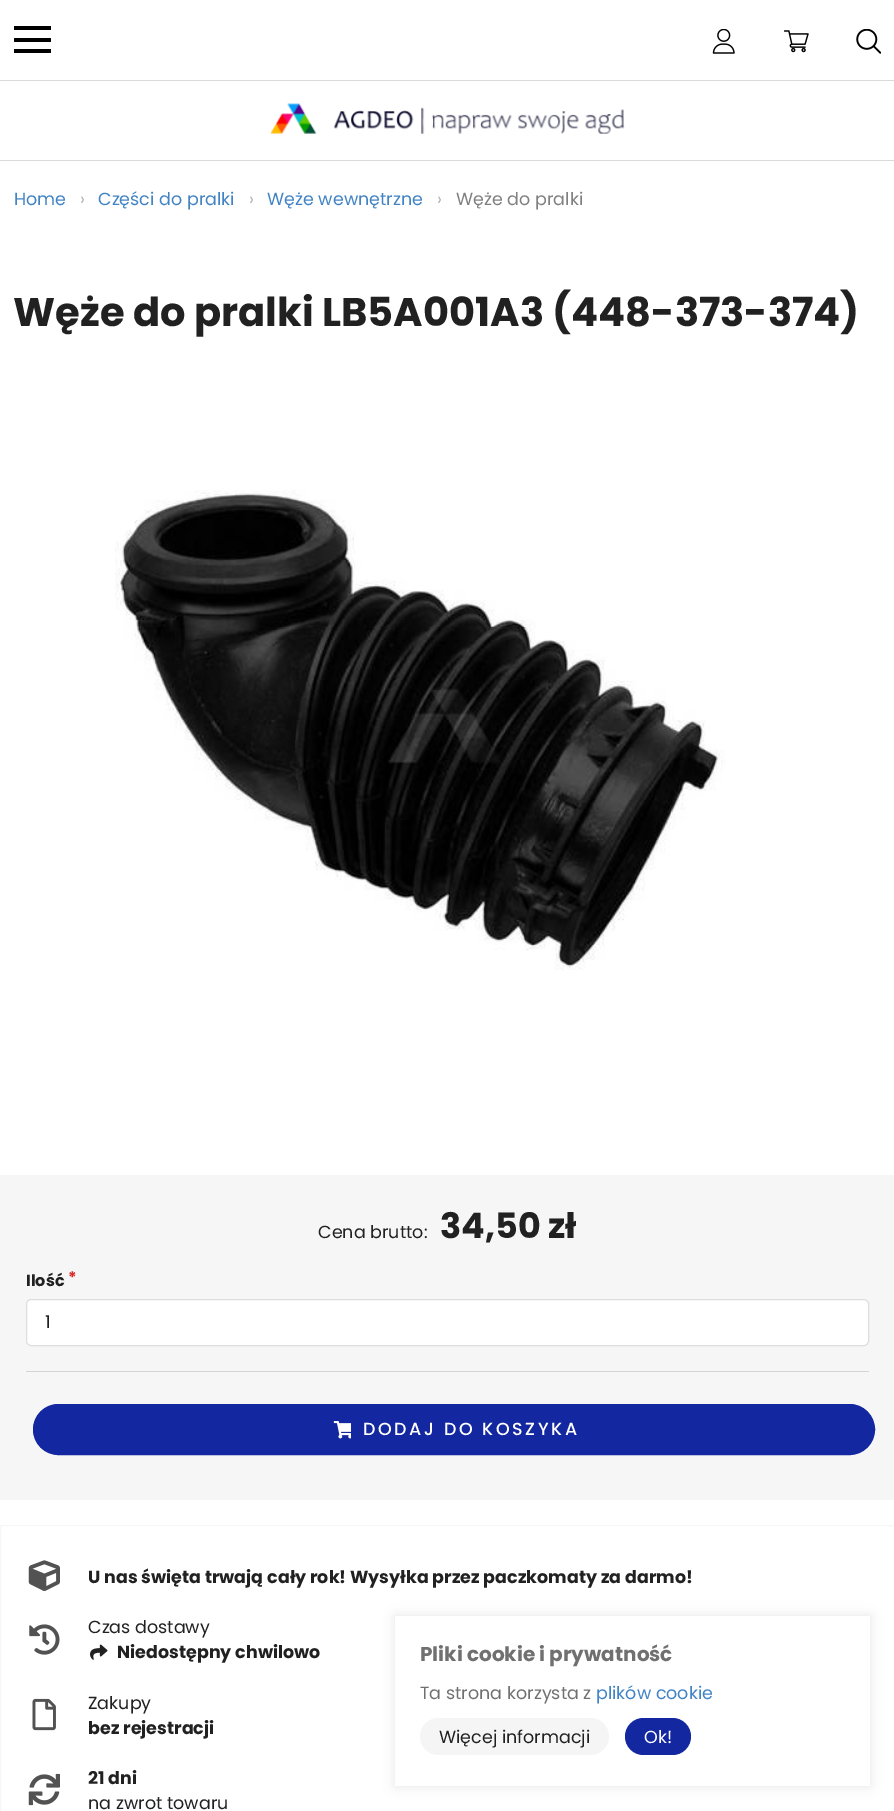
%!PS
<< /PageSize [894 1811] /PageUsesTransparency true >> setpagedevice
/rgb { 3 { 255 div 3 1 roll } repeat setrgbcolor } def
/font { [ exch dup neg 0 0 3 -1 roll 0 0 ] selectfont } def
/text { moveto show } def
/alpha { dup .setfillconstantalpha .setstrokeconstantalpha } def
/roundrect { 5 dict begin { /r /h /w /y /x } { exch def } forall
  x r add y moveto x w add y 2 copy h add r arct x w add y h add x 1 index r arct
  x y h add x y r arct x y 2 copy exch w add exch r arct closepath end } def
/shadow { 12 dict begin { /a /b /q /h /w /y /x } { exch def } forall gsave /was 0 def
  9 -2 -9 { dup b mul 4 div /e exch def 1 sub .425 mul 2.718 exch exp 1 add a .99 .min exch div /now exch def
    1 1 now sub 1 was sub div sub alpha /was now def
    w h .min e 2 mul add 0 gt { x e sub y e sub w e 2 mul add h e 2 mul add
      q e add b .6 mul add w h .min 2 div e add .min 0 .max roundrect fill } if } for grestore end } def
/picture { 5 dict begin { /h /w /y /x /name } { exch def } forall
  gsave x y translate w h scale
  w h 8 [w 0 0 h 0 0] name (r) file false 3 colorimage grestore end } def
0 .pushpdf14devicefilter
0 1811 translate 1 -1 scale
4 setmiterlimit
255 255 255 rgb
0 0 894 1811 rectfill
218 218 218 rgb
0 160 894 1 rectfill
0 0 0 rgb
14 26 37 4 rectfill
14 38 37 4 rectfill
14 49 37 4 rectfill
(img_01.rgb) 712 29 23 25 picture
(img_02.rgb) 784 30 25 23 picture
(img_03.rgb) 856 29 25 25 picture
218 218 218 rgb
0 80 894 1 rectfill
(img_04.rgb) 270 103 355 31 picture
(img_05.rgb) 115 490 610 480 picture
246 246 246 rgb
0 1175 894 325 rectfill
255 255 255 rgb
26 1299 843 47 5 roundrect fill
0.15 alpha
34 36 38 rgb
26.5 1299.5 842 46 4.5 roundrect stroke
1 alpha
212 212 213 rgb
26 1371 843 1 rectfill
19 39 160 rgb
33.5 1404.5 841 50 25 roundrect gsave fill grestore
stroke
(img_06.rgb) 333 1421 18 18 picture
246 246 246 rgb
0.5 1525.5 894 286 rectstroke
(img_07.rgb) 28 1560 32 31 picture
(img_08.rgb) 29 1624 31 31 picture
(img_09.rgb) 90 1644 18 16 picture
(img_10.rgb) 32 1698 24 33 picture
(img_11.rgb) 28 1773 32 33 picture
0 0 0 rgb
395 1616 475 170 0 6 0.1 shadow
255 255 255 rgb
395 1616 475 170 rectfill
245 245 245 rgb
420 1718 189 37 18.5 roundrect fill
19 39 160 rgb
625 1718 66 37 18.5 roundrect fill
/Poppins-Regular 17.5 font
65 131 196 rgb
(Home) 14 205 text
179 179 179 rgb
(›) 80 205 text
65 131 196 rgb
(Części do pralki) 98 205 text
179 179 179 rgb
(›) 249 205 text
65 131 196 rgb
(Węże wewnętrzne) 267 205 text
179 179 179 rgb
(›) 437 205 text
128 128 128 rgb
(Węże do pralki) 456 205 text
/Poppins-Bold 40 font
33 33 33 rgb
(Węże do pralki LB5A001A3 \(448-373-374\)) 13 326 text
/Poppins-Regular 17.5 font
(Cena brutto:) 318 1238 text
/Poppins-Bold 35 font
(34,50 zł) 440 1238 text
/Poppins-Bold 16 font
(Ilość) 26 1286 text
219 40 40 rgb
(*) 68 1283 text
/Poppins-Regular 17.5 font
33 33 33 rgb
(1) 45 1328 text
/Poppins-Medium 17.5 font
255 255 255 rgb
363 1435 moveto 2.6 0 (DODAJ DO KOSZYKA) ashow
/Poppins-Bold 17.5 font
33 33 33 rgb
(U nas święta trwają cały rok! Wysyłka przez paczkomaty za darmo!) 88 1583 text
/Poppins-Regular 17.5 font
(Czas dostawy) 88 1633 text
/Poppins-Bold 17.5 font
(Niedostępny chwilowo) 117 1658 text
/Poppins-Regular 17.5 font
(Zakupy) 88 1709 text
/Poppins-Bold 17.5 font
(bez rejestracji) 88 1734 text
(21 dni) 88 1784 text
/Poppins-Regular 17.5 font
(na zwrot towaru) 88 1809 text
/Poppins-Bold 20 font
112 112 112 rgb
(Pliki cookie i prywatność) 420 1661 text
/Poppins-Regular 17.5 font
(Ta strona korzysta z) 420 1699 text
65 131 196 rgb
(plików cookie) 596 1699 text
33 33 33 rgb
(Więcej informacji) 439 1743 text
255 255 255 rgb
(Ok!) 644 1743 text
.poppdf14devicefilter showpage
